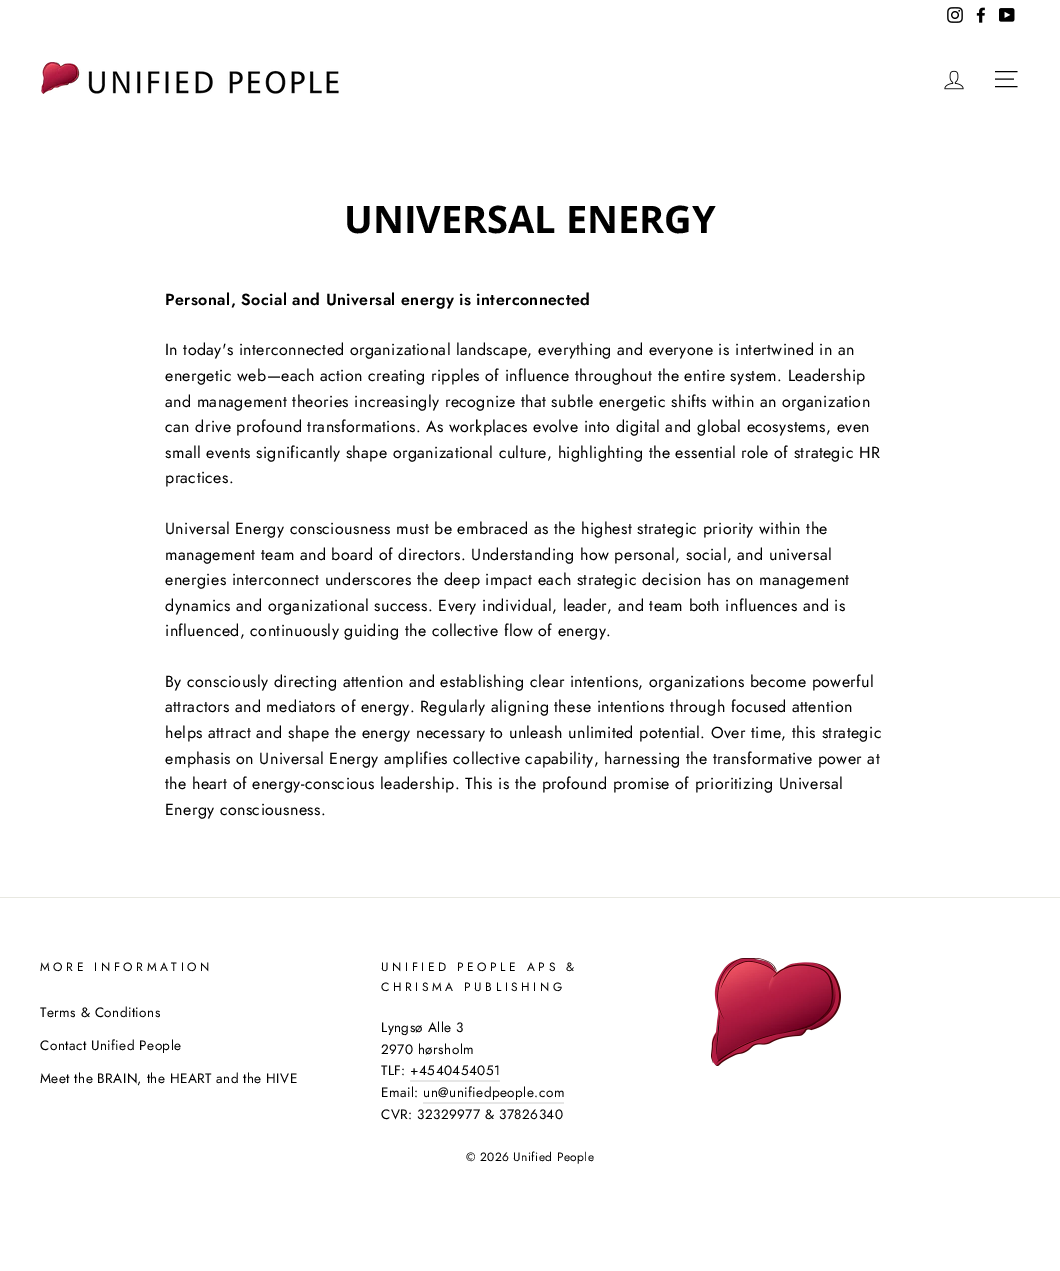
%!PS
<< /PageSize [1060 1271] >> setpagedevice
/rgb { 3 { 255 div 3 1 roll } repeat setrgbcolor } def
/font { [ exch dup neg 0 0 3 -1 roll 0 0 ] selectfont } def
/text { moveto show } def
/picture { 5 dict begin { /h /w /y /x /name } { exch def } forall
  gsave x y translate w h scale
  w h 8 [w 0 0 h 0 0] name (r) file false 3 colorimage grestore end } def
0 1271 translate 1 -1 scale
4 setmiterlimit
255 255 255 rgb
0 0 1060 1271 rectfill
(img_01.rgb) 947 7 16 16 picture
(img_02.rgb) 976 7 9 16 picture
(img_03.rgb) 999 8 16 14 picture
(img_04.rgb) 41 62 298 32 picture
(img_05.rgb) 944 70 20 20 picture
0 0 0 rgb
0.9 setlinewidth
995 71.5 moveto 22.5 0 rlineto 995 79 moveto 19 0 rlineto 995 86.5 moveto 22.5 0 rlineto stroke
232 232 225 rgb
0 897 1060 1 rectfill
230 230 230 rgb
410 1080 90 2 rectfill
423 1102 141 2 rectfill
(img_06.rgb) 711 958 130 108 picture
/OpenSans-Bold 38 font
0 0 0 rgb
(UNIVERSAL ENERGY) 344 233 text
/Jost-SemiBold 16 font
165 305 moveto 0.4 0 (Personal, Social and Universal energy is interconnected) ashow
/Jost-Regular 16 font
165 355 moveto 0.4 0 (In today's interconnected organizational landscape, everything and everyone is intertwined in an) ashow
165 381 moveto 0.4 0 (energetic web—each action creating ripples of influence throughout the entire system. Leadership) ashow
165 407 moveto 0.4 0 (and management theories increasingly recognize that subtle energetic shifts within an organization) ashow
165 432 moveto 0.4 0 (can drive profound transformations. As workplaces evolve into digital and global ecosystems, even) ashow
165 458 moveto 0.4 0 (small events significantly shape organizational culture, highlighting the essential role of strategic HR) ashow
165 483 moveto 0.4 0 (practices.) ashow
165 534 moveto 0.4 0 (Universal Energy consciousness must be embraced as the highest strategic priority within the) ashow
165 560 moveto 0.4 0 (management team and board of directors. Understanding how personal, social, and universal) ashow
165 585 moveto 0.4 0 (energies interconnect underscores the deep impact each strategic decision has on management) ashow
165 611 moveto 0.4 0 (dynamics and organizational success. Every individual, leader, and team both influences and is) ashow
165 636 moveto 0.4 0 (influenced, continuously guiding the collective flow of energy.) ashow
165 687 moveto 0.4 0 (By consciously directing attention and establishing clear intentions, organizations become powerful) ashow
165 712 moveto 0.4 0 (attractors and mediators of energy. Regularly aligning these intentions through focused attention) ashow
165 738 moveto 0.4 0 (helps attract and shape the energy necessary to unleash unlimited potential. Over time, this strategic) ashow
165 764 moveto 0.4 0 (emphasis on Universal Energy amplifies collective capability, harnessing the transformative power at) ashow
165 789 moveto 0.4 0 (the heart of energy-conscious leadership. This is the profound promise of prioritizing Universal) ashow
165 815 moveto 0.4 0 (Energy consciousness.) ashow
/Jost-Regular 12 font
40 971 moveto 3.6 0 (MORE INFORMATION) ashow
/Jost-Regular 13.6 font
40 1017 moveto 0.4 0 (Terms & Conditions) ashow
40 1050 moveto 0.4 0 (Contact Unified People) ashow
40 1083 moveto 0.4 0 (Meet the BRAIN, the HEART and the HIVE) ashow
/Jost-Regular 12 font
381 971 moveto 3.6 0 (UNIFIED PEOPLE APS &) ashow
381 991 moveto 3.6 0 (CHRISMA PUBLISHING) ashow
/Jost-Regular 13.6 font
381 1032 moveto 0.4 0 (Lyngsø Alle 3) ashow
381 1054 moveto 0.4 0 (2970 hørsholm) ashow
381 1075 moveto 0.4 0 (TLF: +4540454051) ashow
381 1097 moveto 0.4 0 (Email: un@unifiedpeople.com) ashow
381 1119 moveto 0.4 0 (CVR: 32329977 & 37826340) ashow
/Jost-Regular 12 font
466 1161 moveto 0.4 0 (© 2026 Unified People) ashow
showpage
